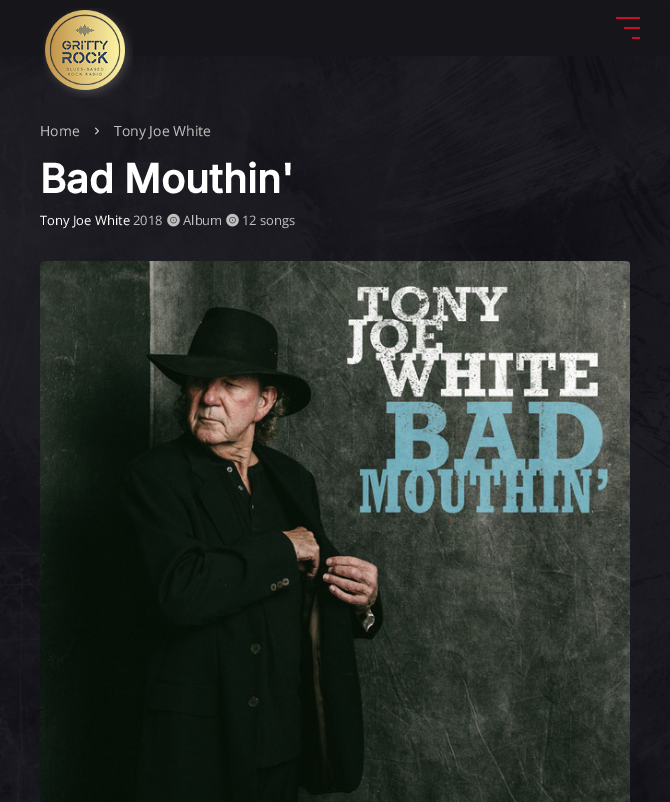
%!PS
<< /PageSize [670 802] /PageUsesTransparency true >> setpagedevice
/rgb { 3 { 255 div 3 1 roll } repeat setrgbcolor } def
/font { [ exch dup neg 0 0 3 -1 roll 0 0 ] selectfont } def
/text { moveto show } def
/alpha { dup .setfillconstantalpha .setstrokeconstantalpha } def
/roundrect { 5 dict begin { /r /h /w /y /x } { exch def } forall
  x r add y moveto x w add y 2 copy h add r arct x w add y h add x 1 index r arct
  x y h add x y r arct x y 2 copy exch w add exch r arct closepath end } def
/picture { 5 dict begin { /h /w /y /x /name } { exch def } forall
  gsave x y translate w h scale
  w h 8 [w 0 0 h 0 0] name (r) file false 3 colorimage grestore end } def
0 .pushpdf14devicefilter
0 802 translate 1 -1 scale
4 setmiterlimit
255 255 255 rgb
0 0 670 802 rectfill
(img_01.rgb) 0 0 670 802 picture
0.95 alpha
22 21 26 rgb
0 0 670 56 rectfill
1 alpha
(img_02.rgb) 43 8 90 90 picture
202 16 40 rgb
616 17 24 2 1 roundrect fill
624 27 16 2 1 roundrect fill
632 37 8 2 1 roundrect fill
(img_03.rgb) 95 127 4 8 picture
(img_04.rgb) 167 213 13 14 picture
(img_05.rgb) 226 213 13 14 picture
(img_06.rgb) 40 261 590 541 picture
/OpenSans-Regular 14 font
192 192 192 rgb
(Home) 40 136 text
(Tony Joe White) 114 136 text
/Inter-Bold 40 font
255 255 255 rgb
(Bad Mouthin') 40 193 text
/OpenSans-Regular 13 font
(Tony Joe White) 40 225 text
192 192 192 rgb
(2018) 133 225 text
(Album) 183 225 text
(12 songs) 242 225 text
.poppdf14devicefilter showpage
